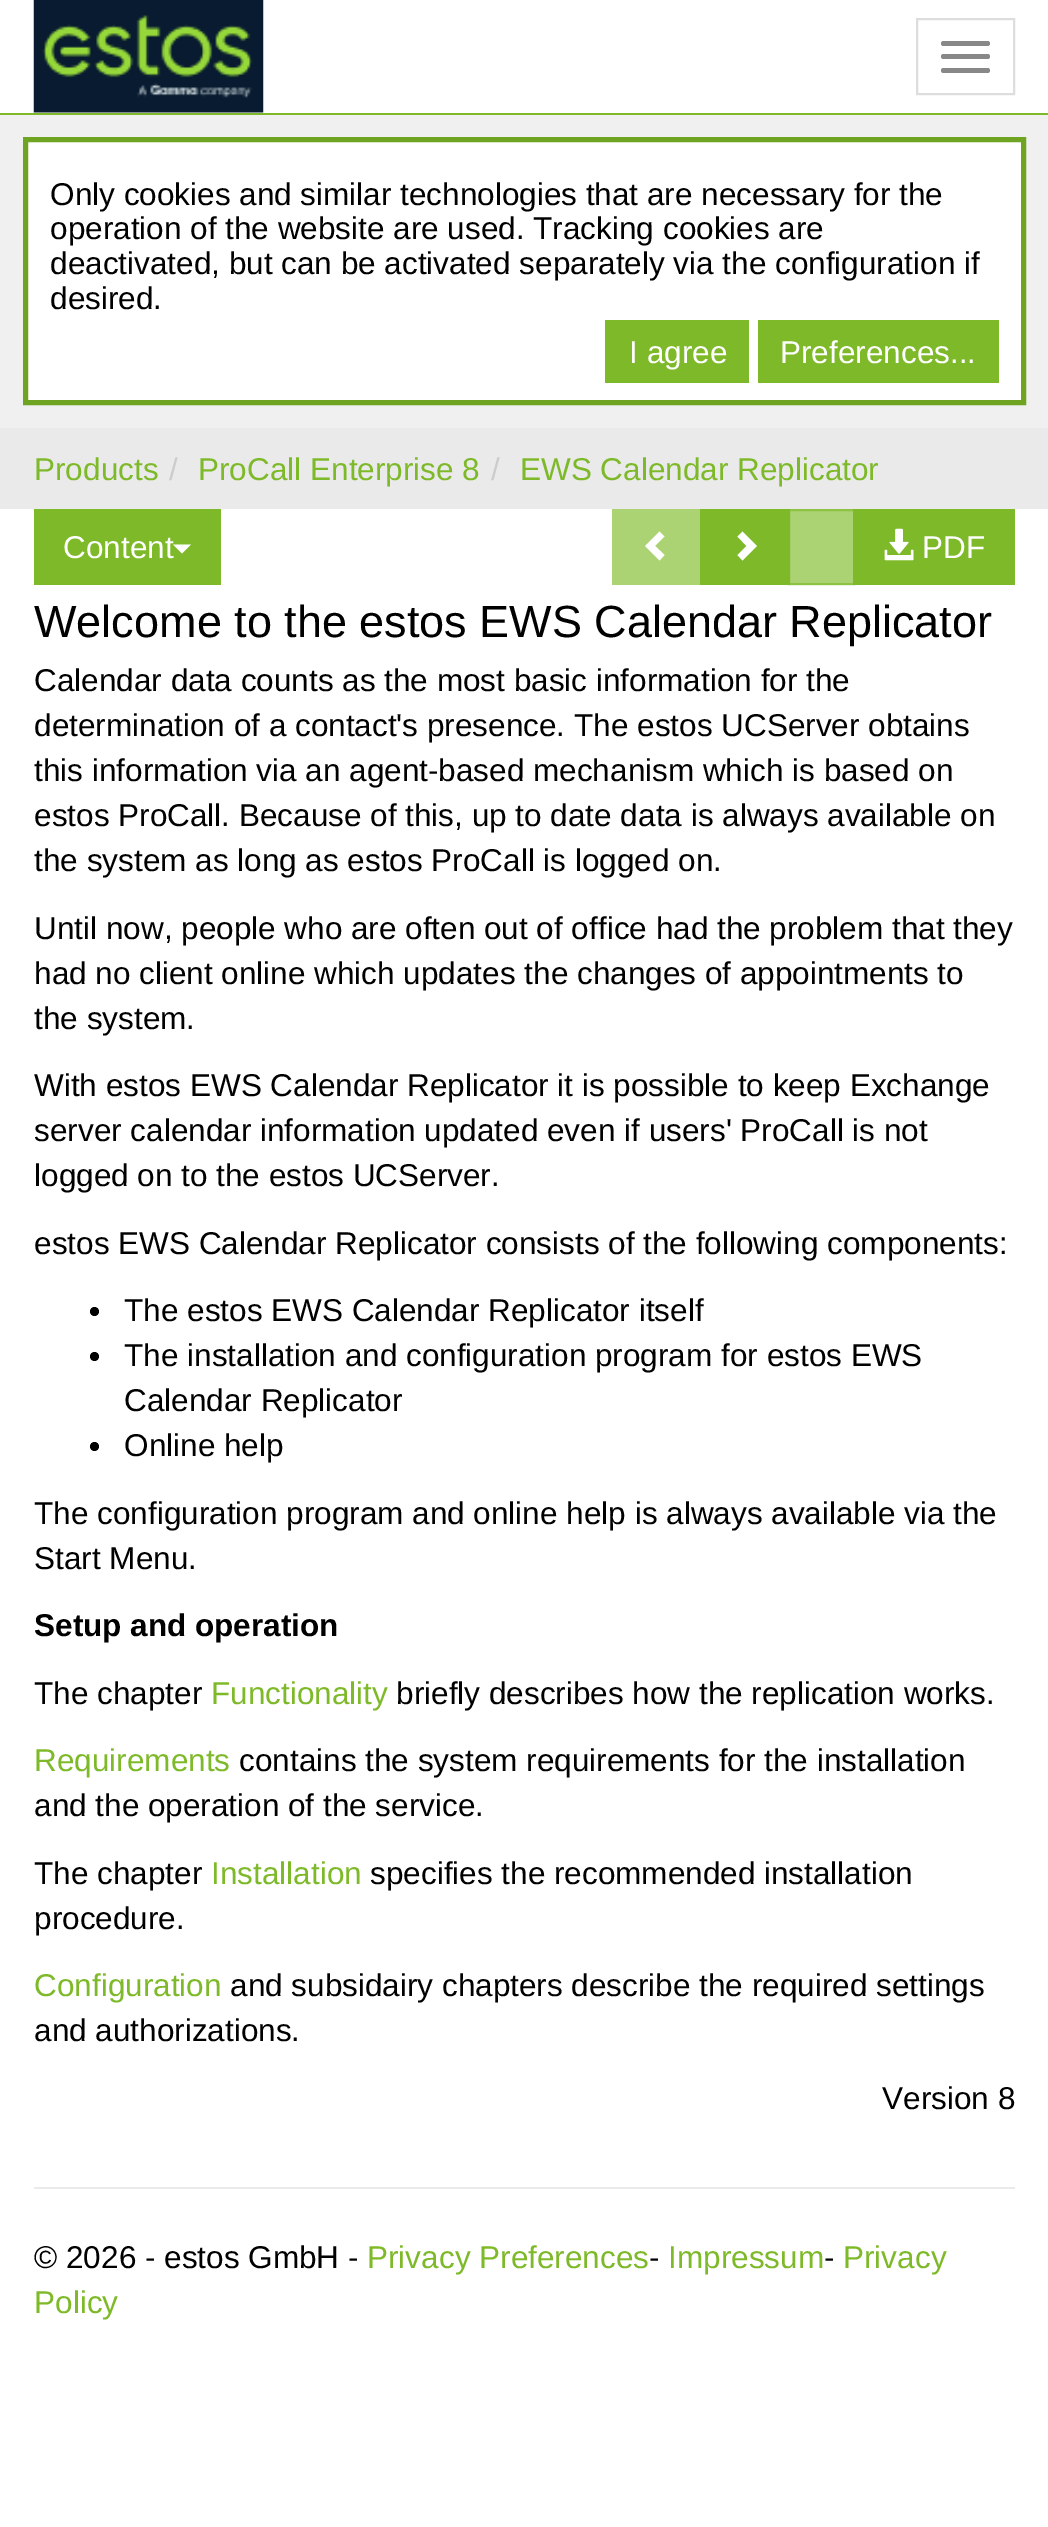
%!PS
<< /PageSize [1048 2527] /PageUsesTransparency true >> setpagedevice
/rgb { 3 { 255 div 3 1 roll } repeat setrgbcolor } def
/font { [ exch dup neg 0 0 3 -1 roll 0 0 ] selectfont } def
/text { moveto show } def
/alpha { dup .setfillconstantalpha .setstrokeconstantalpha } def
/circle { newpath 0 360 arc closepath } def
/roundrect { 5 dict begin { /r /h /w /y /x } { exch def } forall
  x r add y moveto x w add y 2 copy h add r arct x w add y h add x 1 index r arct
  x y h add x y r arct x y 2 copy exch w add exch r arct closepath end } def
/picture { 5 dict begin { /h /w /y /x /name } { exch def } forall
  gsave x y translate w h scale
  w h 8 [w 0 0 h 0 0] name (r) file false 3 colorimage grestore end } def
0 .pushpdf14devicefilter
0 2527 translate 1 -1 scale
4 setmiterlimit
255 255 255 rgb
0 0 1048 2527 rectfill
171 210 115 rgb
790 509 63 76 rectfill
125 185 40 rgb
0 113 1048 2 rectfill
(img_01.rgb) 33 0 231 113 picture
221 221 221 rgb
2 setlinewidth
917 19 97 75 rectstroke
136 136 136 rgb
941 41 49 5 2.5 roundrect fill
941 54 49 5 2.5 roundrect fill
941 68 49 5 2.5 roundrect fill
241 240 240 rgb
0 115 1048 313 rectfill
255 255 255 rgb
25.5 139.5 moveto 998 0 rlineto 0 263 rlineto -998 0 rlineto closepath gsave fill grestore
111 164 35 rgb
5 setlinewidth
stroke
125 185 40 rgb
605 320 144 63 rectfill
758 320 241 63 rectfill
234 234 234 rgb
0 428 1048 81 rectfill
125 185 40 rgb
34 509 187 76 rectfill
255 255 255 rgb
173 544.5 moveto 18 0 rlineto -9 9 rlineto closepath fill
171 210 115 rgb
612 509 88 76 rectfill
255 255 255 rgb
664.5 536.5 moveto -9.5 9.5 rlineto 9.5 9 rlineto -5 5.5 rlineto -14.5 -14.5 rlineto 14.5 -14.5 rlineto closepath fill
125 185 40 rgb
700 509 90 76 rectfill
255 255 255 rgb
757 546 moveto -14.5 14.5 rlineto -5 -5.5 rlineto 9 -9 rlineto -9 -9.5 rlineto 5 -5 rlineto closepath fill
0.65 alpha
125 185 40 rgb
2 setlinewidth
789 510 65 74 rectstroke
1 alpha
853 509 162 76 rectfill
(img_02.rgb) 884 528 30 33 picture
0 0 0 rgb
94.5 1311.5 4.5 circle fill
94.5 1356.5 4.5 circle fill
94.5 1446.5 4.5 circle fill
234 234 234 rgb
34 2187 981 2 rectfill
/LiberationSans-Regular 31.5 font
0 0 0 rgb
(Only cookies and similar technologies that are necessary for the) 50 205 text
(operation of the website are used. Tracking cookies are) 50 239 text
(deactivated, but can be activated separately via the configuration if) 50 274 text
(desired.) 50 309 text
255 255 255 rgb
(I agree) 629 363 text
(Preferences...) 780 363 text
125 185 40 rgb
(Products) 34 480 text
204 204 204 rgb
(/) 169 480 text
125 185 40 rgb
(ProCall Enterprise 8) 198 480 text
204 204 204 rgb
(/) 491 480 text
125 185 40 rgb
(EWS Calendar Replicator) 520 480 text
255 255 255 rgb
(Content) 63 558 text
(PDF) 922 558 text
/LiberationSans-Regular 45 font
0 0 0 rgb
(Welcome to the estos EWS Calendar Replicator) 34 637 text
/LiberationSans-Regular 31.5 font
(Calendar data counts as the most basic information for the) 34 691 text
(determination of a contact's presence. The estos UCServer obtains) 34 736 text
(this information via an agent-based mechanism which is based on) 34 781 text
(estos ProCall. Because of this, up to date data is always available on) 34 826 text
(the system as long as estos ProCall is logged on.) 34 871 text
(Until now, people who are often out of office had the problem that they) 34 939 text
(had no client online which updates the changes of appointments to) 34 984 text
(the system.) 34 1029 text
(With estos EWS Calendar Replicator it is possible to keep Exchange) 34 1096 text
(server calendar information updated even if users' ProCall is not) 34 1141 text
(logged on to the estos UCServer.) 34 1186 text
(estos EWS Calendar Replicator consists of the following components:) 34 1254 text
(The estos EWS Calendar Replicator itself) 124 1321 text
(The installation and configuration program for estos EWS) 124 1366 text
(Calendar Replicator) 124 1411 text
(Online help) 124 1456 text
(The configuration program and online help is always available via the) 34 1524 text
(Start Menu.) 34 1569 text
/LiberationSans-Bold 31.5 font
(Setup and operation) 34 1636 text
/LiberationSans-Regular 31.5 font
(The chapter) 34 1704 text
125 185 40 rgb
(Functionality) 211 1704 text
0 0 0 rgb
(briefly describes how the replication works.) 396 1704 text
125 185 40 rgb
(Requirements) 34 1771 text
0 0 0 rgb
(contains the system requirements for the installation) 239 1771 text
(and the operation of the service.) 34 1816 text
(The chapter) 34 1884 text
125 185 40 rgb
(Installation) 211 1884 text
0 0 0 rgb
(specifies the recommended installation) 370 1884 text
(procedure.) 34 1929 text
125 185 40 rgb
(Configuration) 34 1996 text
0 0 0 rgb
(and subsidairy chapters describe the required settings) 230 1996 text
(and authorizations.) 34 2041 text
(Version 8) 882 2109 text
(© 2026 - estos GmbH -) 34 2268 text
125 185 40 rgb
(Privacy Preferences) 367 2268 text
0 0 0 rgb
(-) 649 2268 text
125 185 40 rgb
(Impressum) 668 2268 text
0 0 0 rgb
(-) 824 2268 text
125 185 40 rgb
(Privacy) 843 2268 text
(Policy) 34 2313 text
.poppdf14devicefilter showpage
